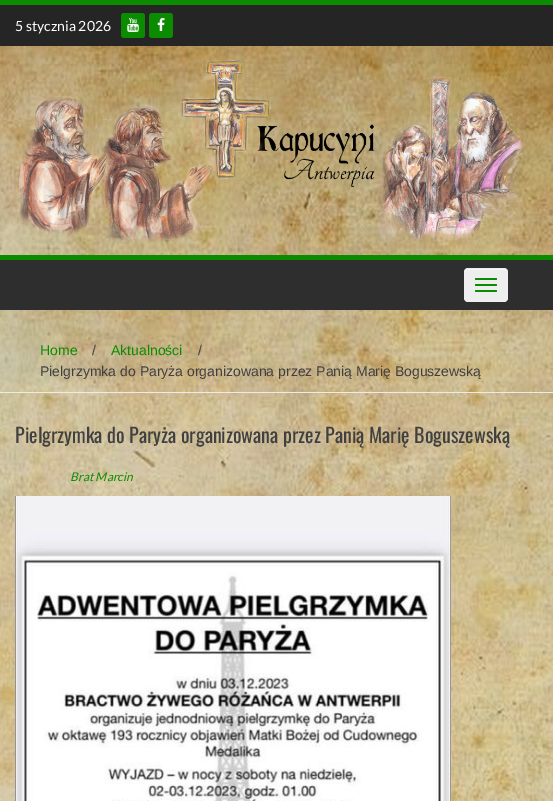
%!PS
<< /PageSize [553 801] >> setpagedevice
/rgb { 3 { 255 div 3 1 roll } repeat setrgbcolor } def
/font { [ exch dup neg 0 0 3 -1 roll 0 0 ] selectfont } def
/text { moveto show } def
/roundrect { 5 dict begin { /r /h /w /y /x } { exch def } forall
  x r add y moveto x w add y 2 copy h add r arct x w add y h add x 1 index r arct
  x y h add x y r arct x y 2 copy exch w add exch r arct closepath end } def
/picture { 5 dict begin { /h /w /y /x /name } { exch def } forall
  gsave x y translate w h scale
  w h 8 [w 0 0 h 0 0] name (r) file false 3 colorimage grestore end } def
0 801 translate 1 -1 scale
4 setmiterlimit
255 255 255 rgb
0 0 553 801 rectfill
(img_01.rgb) 0 46 553 755 picture
37 37 37 rgb
0 5 553 41 rectfill
11 140 0 rgb
0 0 553 5 rectfill
121 13 24 25 3 roundrect fill
(img_02.rgb) 127 18 12 14 picture
149 13 24 25 3 roundrect fill
(img_03.rgb) 157 18 8 13 picture
(img_04.rgb) 16 59 507 186 picture
46 46 46 rgb
0 260 553 50 rectfill
11 140 0 rgb
0 255 553 5 rectfill
238 238 238 rgb
464 268 44 34 4 roundrect fill
247 247 247 rgb
468 270 moveto 36 0 rlineto 2 0 3 1 3 3 rcurveto 0 -5 -5 -4 -9 -4 rcurveto -24 0 rlineto -4 0 -9 -1 -9 4 rcurveto 0 -2 1 -3 3 -3 rcurveto closepath fill
11 140 0 rgb
475 278 22 2 1 roundrect fill
475 284 22 2 1 roundrect fill
475 290 22 2 1 roundrect fill
235 235 235 rgb
0 392 553 1 rectfill
(img_05.rgb) 15 496 436 305 picture
/Lato-Regular 14 font
255 255 255 rgb
(5 stycznia 2026) 15 31 text
/LiberationSans-Regular 14 font
11 140 0 rgb
(Home) 40 355 text
64 64 64 rgb
(/) 92 355 text
11 140 0 rgb
(Aktualności) 111 355 text
64 64 64 rgb
(/) 198 355 text
(Pielgrzymka do Paryża organizowana przez Panią Marię Boguszewską) 40 376 text
/Oswald-Regular 20 font
(Pielgrzymka do Paryża organizowana przez Panią Marię Boguszewską) 15 443 text
/Lato-Italic 12 font
11 140 0 rgb
(Brat Marcin) 70 481 text
showpage
